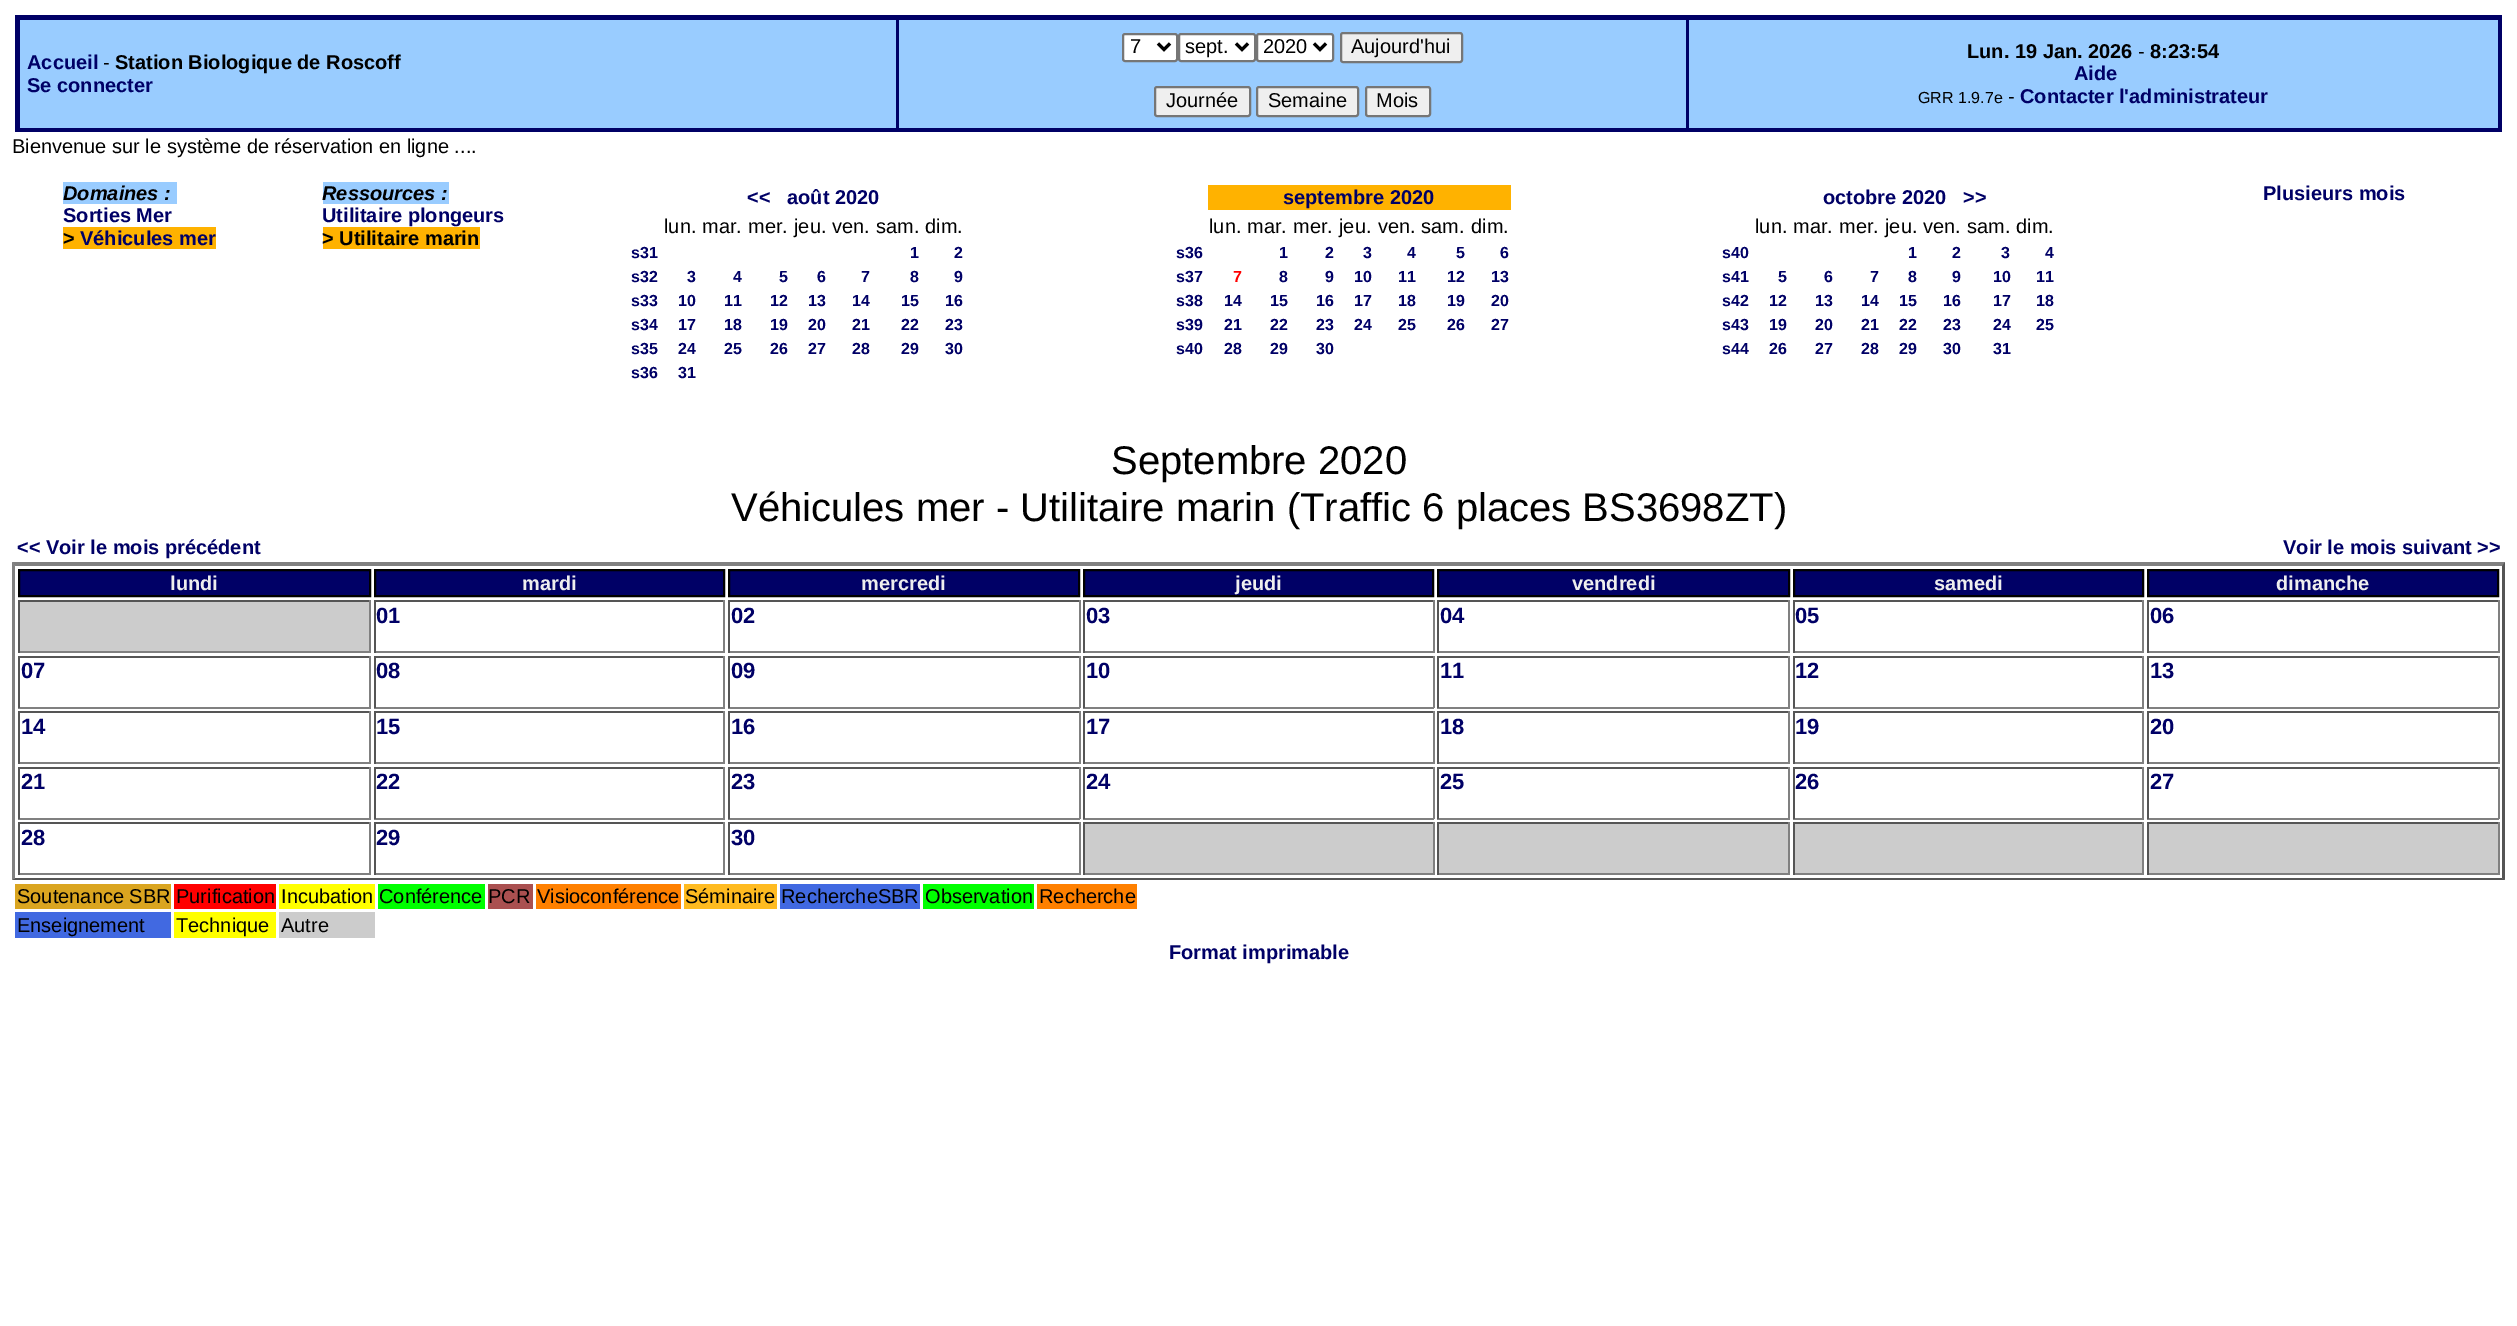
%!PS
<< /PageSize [2517 1326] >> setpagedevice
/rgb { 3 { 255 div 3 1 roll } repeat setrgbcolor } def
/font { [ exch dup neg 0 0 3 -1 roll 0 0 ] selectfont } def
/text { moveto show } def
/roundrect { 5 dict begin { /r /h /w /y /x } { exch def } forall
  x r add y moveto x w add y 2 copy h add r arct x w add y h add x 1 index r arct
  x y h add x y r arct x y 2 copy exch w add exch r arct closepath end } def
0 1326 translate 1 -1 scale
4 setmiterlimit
255 255 255 rgb
0 0 2517 1326 rectfill
0 0 102 rgb
15 15 2487 117 rectfill
153 204 255 rgb
20 20 876 108 rectfill
899 20 787 108 rectfill
255 255 255 rgb
1123 34 54 27 2 roundrect gsave fill grestore
118 118 118 rgb
2 setlinewidth
stroke
0 0 0 rgb
3 setlinewidth
1158 43.5 moveto 6 6 rlineto 6 -6 rlineto stroke
255 255 255 rgb
1179 34 76 27 2 roundrect gsave fill grestore
118 118 118 rgb
2 setlinewidth
stroke
0 0 0 rgb
3 setlinewidth
1236 43.5 moveto 6 6 rlineto 6 -6 rlineto stroke
255 255 255 rgb
1257 34 76 27 2 roundrect gsave fill grestore
118 118 118 rgb
2 setlinewidth
stroke
0 0 0 rgb
3 setlinewidth
1314 43.5 moveto 6 6 rlineto 6 -6 rlineto stroke
239 239 239 rgb
1341 33 121 29 2 roundrect gsave fill grestore
118 118 118 rgb
2 setlinewidth
stroke
239 239 239 rgb
1155 87 95 29 2 roundrect gsave fill grestore
118 118 118 rgb
stroke
239 239 239 rgb
1257 87 101 29 2 roundrect gsave fill grestore
118 118 118 rgb
stroke
239 239 239 rgb
1366 87 64 29 2 roundrect gsave fill grestore
118 118 118 rgb
stroke
153 204 255 rgb
1689 20 809 108 rectfill
63 182 114 22 rectfill
255 178 0 rgb
63 227 153 22 rectfill
153 204 255 rgb
323 182 126 22 rectfill
255 178 0 rgb
323 227 157 22 rectfill
1208 185 303 25 rectfill
128 128 128 rgb
12 562 moveto 2493 0 rlineto -3 4 rlineto -2487 0 rlineto closepath fill
85 85 85 rgb
2505 562 moveto 0 318 rlineto -3 -2 rlineto 0 -312 rlineto closepath fill
2505 880 moveto -2493 0 rlineto 3 -2 rlineto 2487 0 rlineto closepath fill
128 128 128 rgb
12 880 moveto 0 -318 rlineto 3 4 rlineto 0 312 rlineto closepath fill
0 0 102 rgb
19 570 moveto 351 0 rlineto 0 26 rlineto -351 0 rlineto closepath gsave fill grestore
0 0 0 rgb
stroke
0 0 102 rgb
375 570 moveto 349 0 rlineto 0 26 rlineto -349 0 rlineto closepath gsave fill grestore
0 0 0 rgb
stroke
0 0 102 rgb
729 570 moveto 350 0 rlineto 0 26 rlineto -350 0 rlineto closepath gsave fill grestore
0 0 0 rgb
stroke
0 0 102 rgb
1084 570 moveto 349 0 rlineto 0 26 rlineto -349 0 rlineto closepath gsave fill grestore
0 0 0 rgb
stroke
0 0 102 rgb
1438 570 moveto 351 0 rlineto 0 26 rlineto -351 0 rlineto closepath gsave fill grestore
0 0 0 rgb
stroke
0 0 102 rgb
1794 570 moveto 349 0 rlineto 0 26 rlineto -349 0 rlineto closepath gsave fill grestore
0 0 0 rgb
stroke
0 0 102 rgb
2148 570 moveto 350 0 rlineto 0 26 rlineto -350 0 rlineto closepath gsave fill grestore
0 0 0 rgb
stroke
204 204 204 rgb
20 602 349 49 rectfill
85 85 85 rgb
18 600 353 2 rectfill
128 128 128 rgb
369 600 2 53 rectfill
18 651 353 2 rectfill
85 85 85 rgb
18 600 2 53 rectfill
374 600 351 2 rectfill
128 128 128 rgb
723 600 2 53 rectfill
374 651 351 2 rectfill
85 85 85 rgb
374 600 2 53 rectfill
728 600 352 2 rectfill
128 128 128 rgb
1079 600 2 53 rectfill
728 651 352 2 rectfill
85 85 85 rgb
728 600 2 53 rectfill
1083 600 351 2 rectfill
128 128 128 rgb
1433 600 2 53 rectfill
1083 651 351 2 rectfill
85 85 85 rgb
1083 600 2 53 rectfill
1437 600 353 2 rectfill
128 128 128 rgb
1788 600 2 53 rectfill
1437 651 353 2 rectfill
85 85 85 rgb
1437 600 2 53 rectfill
1793 600 351 2 rectfill
128 128 128 rgb
2142 600 2 53 rectfill
1793 651 351 2 rectfill
85 85 85 rgb
1793 600 2 53 rectfill
2147 600 352 2 rectfill
128 128 128 rgb
2498 600 2 53 rectfill
2147 651 352 2 rectfill
85 85 85 rgb
2147 600 2 53 rectfill
18 656 353 2 rectfill
128 128 128 rgb
369 656 2 52 rectfill
18 707 353 2 rectfill
85 85 85 rgb
18 656 2 52 rectfill
374 656 351 2 rectfill
128 128 128 rgb
723 656 2 52 rectfill
374 707 351 2 rectfill
85 85 85 rgb
374 656 2 52 rectfill
728 656 352 2 rectfill
128 128 128 rgb
1079 656 2 52 rectfill
728 707 352 2 rectfill
85 85 85 rgb
728 656 2 52 rectfill
1083 656 351 2 rectfill
128 128 128 rgb
1433 656 2 52 rectfill
1083 707 351 2 rectfill
85 85 85 rgb
1083 656 2 52 rectfill
1437 656 353 2 rectfill
128 128 128 rgb
1788 656 2 52 rectfill
1437 707 353 2 rectfill
85 85 85 rgb
1437 656 2 52 rectfill
1793 656 351 2 rectfill
128 128 128 rgb
2142 656 2 52 rectfill
1793 707 351 2 rectfill
85 85 85 rgb
1793 656 2 52 rectfill
2147 656 352 2 rectfill
128 128 128 rgb
2498 656 2 52 rectfill
2147 707 352 2 rectfill
85 85 85 rgb
2147 656 2 52 rectfill
18 711 353 2 rectfill
128 128 128 rgb
369 711 2 53 rectfill
18 762 353 2 rectfill
85 85 85 rgb
18 711 2 53 rectfill
374 711 351 2 rectfill
128 128 128 rgb
723 711 2 53 rectfill
374 762 351 2 rectfill
85 85 85 rgb
374 711 2 53 rectfill
728 711 352 2 rectfill
128 128 128 rgb
1079 711 2 53 rectfill
728 762 352 2 rectfill
85 85 85 rgb
728 711 2 53 rectfill
1083 711 351 2 rectfill
128 128 128 rgb
1433 711 2 53 rectfill
1083 762 351 2 rectfill
85 85 85 rgb
1083 711 2 53 rectfill
1437 711 353 2 rectfill
128 128 128 rgb
1788 711 2 53 rectfill
1437 762 353 2 rectfill
85 85 85 rgb
1437 711 2 53 rectfill
1793 711 351 2 rectfill
128 128 128 rgb
2142 711 2 53 rectfill
1793 762 351 2 rectfill
85 85 85 rgb
1793 711 2 53 rectfill
2147 711 352 2 rectfill
128 128 128 rgb
2498 711 2 53 rectfill
2147 762 352 2 rectfill
85 85 85 rgb
2147 711 2 53 rectfill
18 767 353 2 rectfill
128 128 128 rgb
369 767 2 52 rectfill
18 818 353 2 rectfill
85 85 85 rgb
18 767 2 52 rectfill
374 767 351 2 rectfill
128 128 128 rgb
723 767 2 52 rectfill
374 818 351 2 rectfill
85 85 85 rgb
374 767 2 52 rectfill
728 767 352 2 rectfill
128 128 128 rgb
1079 767 2 52 rectfill
728 818 352 2 rectfill
85 85 85 rgb
728 767 2 52 rectfill
1083 767 351 2 rectfill
128 128 128 rgb
1433 767 2 52 rectfill
1083 818 351 2 rectfill
85 85 85 rgb
1083 767 2 52 rectfill
1437 767 353 2 rectfill
128 128 128 rgb
1788 767 2 52 rectfill
1437 818 353 2 rectfill
85 85 85 rgb
1437 767 2 52 rectfill
1793 767 351 2 rectfill
128 128 128 rgb
2142 767 2 52 rectfill
1793 818 351 2 rectfill
85 85 85 rgb
1793 767 2 52 rectfill
2147 767 352 2 rectfill
128 128 128 rgb
2498 767 2 52 rectfill
2147 818 352 2 rectfill
85 85 85 rgb
2147 767 2 52 rectfill
18 822 353 2 rectfill
128 128 128 rgb
369 822 2 53 rectfill
18 873 353 2 rectfill
85 85 85 rgb
18 822 2 53 rectfill
374 822 351 2 rectfill
128 128 128 rgb
723 822 2 53 rectfill
374 873 351 2 rectfill
85 85 85 rgb
374 822 2 53 rectfill
728 822 352 2 rectfill
128 128 128 rgb
1079 822 2 53 rectfill
728 873 352 2 rectfill
85 85 85 rgb
728 822 2 53 rectfill
204 204 204 rgb
1085 824 348 49 rectfill
85 85 85 rgb
1083 822 351 2 rectfill
128 128 128 rgb
1433 822 2 53 rectfill
1083 873 351 2 rectfill
85 85 85 rgb
1083 822 2 53 rectfill
204 204 204 rgb
1439 824 349 49 rectfill
85 85 85 rgb
1437 822 353 2 rectfill
128 128 128 rgb
1788 822 2 53 rectfill
1437 873 353 2 rectfill
85 85 85 rgb
1437 822 2 53 rectfill
204 204 204 rgb
1795 824 347 49 rectfill
85 85 85 rgb
1793 822 351 2 rectfill
128 128 128 rgb
2142 822 2 53 rectfill
1793 873 351 2 rectfill
85 85 85 rgb
1793 822 2 53 rectfill
204 204 204 rgb
2149 824 349 49 rectfill
85 85 85 rgb
2147 822 352 2 rectfill
128 128 128 rgb
2498 822 2 53 rectfill
2147 873 352 2 rectfill
85 85 85 rgb
2147 822 2 53 rectfill
218 165 32 rgb
15 884 156 25 rectfill
255 0 0 rgb
174 884 102 25 rectfill
255 255 0 rgb
279 884 96 25 rectfill
0 255 0 rgb
378 884 107 25 rectfill
170 80 80 rgb
488 884 45 25 rectfill
255 128 0 rgb
536 884 145 25 rectfill
255 187 32 rgb
684 884 93 25 rectfill
65 105 225 rgb
780 884 140 25 rectfill
0 255 0 rgb
923 884 111 25 rectfill
255 128 0 rgb
1037 884 100 25 rectfill
65 105 225 rgb
15 912 156 26 rectfill
255 255 0 rgb
174 912 102 26 rectfill
204 204 204 rgb
279 912 96 26 rectfill
/LiberationSans-Bold 20 font
0 0 102 rgb
(Accueil) 27 69 text
/LiberationSans-Regular 20 font
0 0 0 rgb
(-) 103 69 text
/LiberationSans-Bold 20 font
(Station Biologique de Roscoff) 115 69 text
0 0 102 rgb
(Se connecter) 27 92 text
/LiberationSans-Regular 20 font
0 0 0 rgb
(7) 1130 53 text
(sept.) 1185 53 text
(2020) 1263 53 text
(Aujourd'hui) 1351 53 text
(Journée) 1166 107 text
(Semaine) 1268 107 text
(Mois) 1376 107 text
/LiberationSans-Bold 20 font
(Lun. 19 Jan. 2026) 1967 58 text
/LiberationSans-Regular 20 font
(-) 2138 58 text
/LiberationSans-Bold 20 font
(8:23:54) 2150 58 text
0 0 102 rgb
(Aide) 2074 80 text
/LiberationSans-Regular 16 font
0 0 0 rgb
(GRR 1.9.7e) 1918 103 text
/LiberationSans-Regular 20 font
(-) 2008 103 text
/LiberationSans-Bold 20 font
0 0 102 rgb
(Contacter l'administrateur) 2020 103 text
/LiberationSans-Regular 20 font
0 0 0 rgb
(Bienvenue sur le système de réservation en ligne ....) 12 153 text
/LiberationSans-BoldItalic 20 font
(Domaines :) 63 200 text
/LiberationSans-Bold 20 font
0 0 102 rgb
(Sorties Mer) 63 222 text
0 0 0 rgb
(>) 63 245 text
0 0 102 rgb
(Véhicules mer) 80 245 text
/LiberationSans-BoldItalic 20 font
0 0 0 rgb
(Ressources :) 322 200 text
/LiberationSans-Bold 20 font
0 0 102 rgb
(Utilitaire plongeurs) 322 222 text
0 0 0 rgb
(> Utilitaire marin) 322 245 text
0 0 102 rgb
(<<) 747 204 text
(août 2020) 787 204 text
/LiberationSans-Regular 20 font
0 0 0 rgb
(lun.) 664 233 text
(mar.) 702 233 text
(mer.) 748 233 text
(jeu.) 794 233 text
(ven.) 832 233 text
(sam.) 876 233 text
(dim.) 925 233 text
/LiberationSans-Bold 16 font
0 0 102 rgb
(s31) 631 258 text
(1) 910 258 text
(2) 954 258 text
(s32) 631 282 text
(3) 687 282 text
(4) 733 282 text
(5) 779 282 text
(6) 817 282 text
(7) 861 282 text
(8) 910 282 text
(9) 954 282 text
(s33) 631 306 text
(10) 678 306 text
(11) 724 306 text
(12) 770 306 text
(13) 808 306 text
(14) 852 306 text
(15) 901 306 text
(16) 945 306 text
(s34) 631 330 text
(17) 678 330 text
(18) 724 330 text
(19) 770 330 text
(20) 808 330 text
(21) 852 330 text
(22) 901 330 text
(23) 945 330 text
(s35) 631 354 text
(24) 678 354 text
(25) 724 354 text
(26) 770 354 text
(27) 808 354 text
(28) 852 354 text
(29) 901 354 text
(30) 945 354 text
(s36) 631 378 text
(31) 678 378 text
/LiberationSans-Bold 20 font
(septembre 2020) 1283 204 text
/LiberationSans-Regular 20 font
0 0 0 rgb
(lun.) 1209 233 text
(mar.) 1247 233 text
(mer.) 1293 233 text
(jeu.) 1339 233 text
(ven.) 1378 233 text
(sam.) 1421 233 text
(dim.) 1471 233 text
/LiberationSans-Bold 16 font
0 0 102 rgb
(s36) 1176 258 text
(1) 1279 258 text
(2) 1325 258 text
(3) 1363 258 text
(4) 1407 258 text
(5) 1456 258 text
(6) 1500 258 text
(s37) 1176 282 text
255 0 0 rgb
(7) 1233 282 text
0 0 102 rgb
(8) 1279 282 text
(9) 1325 282 text
(10) 1354 282 text
(11) 1398 282 text
(12) 1447 282 text
(13) 1491 282 text
(s38) 1176 306 text
(14) 1224 306 text
(15) 1270 306 text
(16) 1316 306 text
(17) 1354 306 text
(18) 1398 306 text
(19) 1447 306 text
(20) 1491 306 text
(s39) 1176 330 text
(21) 1224 330 text
(22) 1270 330 text
(23) 1316 330 text
(24) 1354 330 text
(25) 1398 330 text
(26) 1447 330 text
(27) 1491 330 text
(s40) 1176 354 text
(28) 1224 354 text
(29) 1270 354 text
(30) 1316 354 text
/LiberationSans-Bold 20 font
(octobre 2020) 1823 204 text
(>>) 1963 204 text
/LiberationSans-Regular 20 font
0 0 0 rgb
(lun.) 1755 233 text
(mar.) 1793 233 text
(mer.) 1839 233 text
(jeu.) 1885 233 text
(ven.) 1923 233 text
(sam.) 1967 233 text
(dim.) 2016 233 text
/LiberationSans-Bold 16 font
0 0 102 rgb
(s40) 1722 258 text
(1) 1908 258 text
(2) 1952 258 text
(3) 2001 258 text
(4) 2045 258 text
(s41) 1722 282 text
(5) 1778 282 text
(6) 1824 282 text
(7) 1870 282 text
(8) 1908 282 text
(9) 1952 282 text
(10) 1993 282 text
(11) 2036 282 text
(s42) 1722 306 text
(12) 1769 306 text
(13) 1815 306 text
(14) 1861 306 text
(15) 1899 306 text
(16) 1943 306 text
(17) 1993 306 text
(18) 2036 306 text
(s43) 1722 330 text
(19) 1769 330 text
(20) 1815 330 text
(21) 1861 330 text
(22) 1899 330 text
(23) 1943 330 text
(24) 1993 330 text
(25) 2036 330 text
(s44) 1722 354 text
(26) 1769 354 text
(27) 1815 354 text
(28) 1861 354 text
(29) 1899 354 text
(30) 1943 354 text
(31) 1993 354 text
/LiberationSans-Bold 20 font
(Plusieurs mois) 2263 200 text
/LiberationSans-Regular 40 font
0 0 0 rgb
(Septembre 2020) 1111 474 text
(Véhicules mer - Utilitaire marin \(Traffic 6 places BS3698ZT\)) 731 521 text
/LiberationSans-Bold 20 font
0 0 102 rgb
(<< Voir le mois précédent) 17 554 text
(Voir le mois suivant >>) 2283 554 text
238 238 238 rgb
(lundi) 170 590 text
(mardi) 522 590 text
(mercredi) 861 590 text
(jeudi) 1235 590 text
(vendredi) 1572 590 text
(samedi) 1934 590 text
(dimanche) 2276 590 text
/LiberationSans-Bold 22 font
0 0 102 rgb
(01) 376 623 text
(02) 731 623 text
(03) 1086 623 text
(04) 1440 623 text
(05) 1795 623 text
(06) 2150 623 text
(07) 21 678 text
(08) 376 678 text
(09) 731 678 text
(10) 1086 678 text
(11) 1440 678 text
(12) 1795 678 text
(13) 2150 678 text
(14) 21 734 text
(15) 376 734 text
(16) 731 734 text
(17) 1086 734 text
(18) 1440 734 text
(19) 1795 734 text
(20) 2150 734 text
(21) 21 789 text
(22) 376 789 text
(23) 731 789 text
(24) 1086 789 text
(25) 1440 789 text
(26) 1795 789 text
(27) 2150 789 text
(28) 21 845 text
(29) 376 845 text
(30) 731 845 text
/LiberationSans-Regular 20 font
0 0 0 rgb
(Soutenance SBR) 17 903 text
(Purification) 176 903 text
(Incubation) 281 903 text
(Conférence) 379 903 text
(PCR) 488 903 text
(Visioconférence) 537 903 text
(Séminaire) 685 903 text
(RechercheSBR) 781 903 text
(Observation) 925 903 text
(Recherche) 1039 903 text
(Enseignement) 17 932 text
(Technique) 176 932 text
(Autre) 281 932 text
/LiberationSans-Bold 20 font
0 0 102 rgb
(Format imprimable) 1169 959 text
showpage
